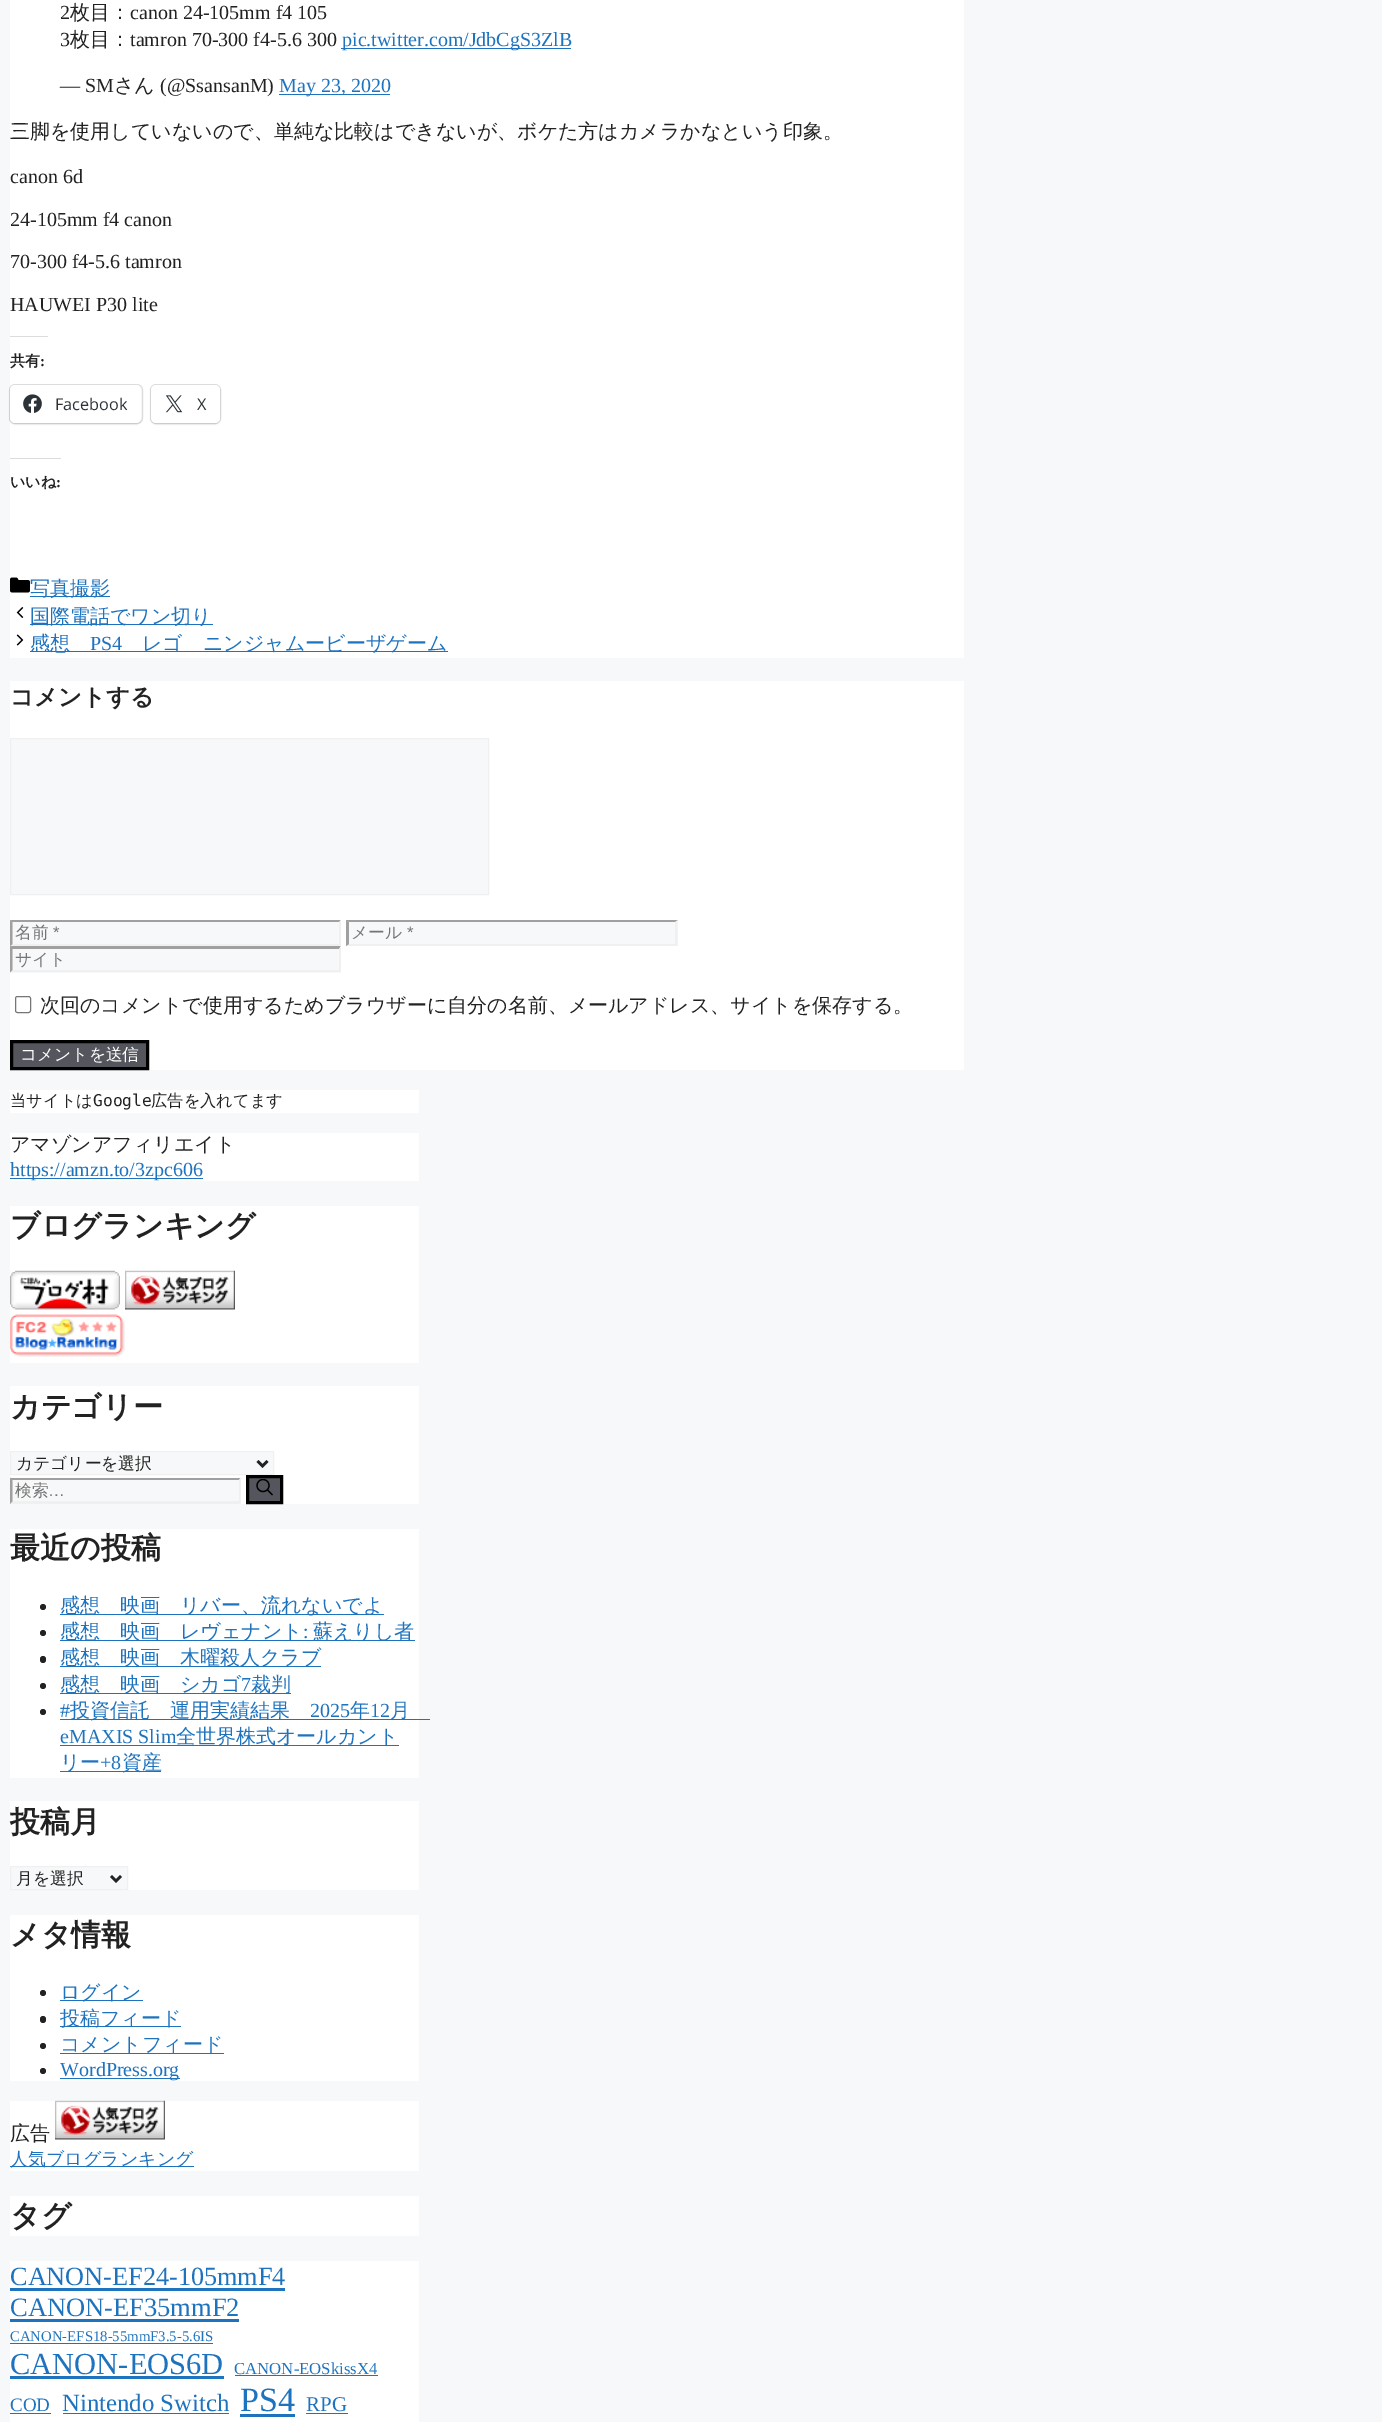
%!PS
<< /PageSize [1382 2422] /PageUsesTransparency true >> setpagedevice
/rgb { 3 { 255 div 3 1 roll } repeat setrgbcolor } def
/font { [ exch dup neg 0 0 3 -1 roll 0 0 ] selectfont } def
/text { moveto show } def
/alpha { dup .setfillconstantalpha .setstrokeconstantalpha } def
/circle { newpath 0 360 arc closepath } def
/roundrect { 5 dict begin { /r /h /w /y /x } { exch def } forall
  x r add y moveto x w add y 2 copy h add r arct x w add y h add x 1 index r arct
  x y h add x y r arct x y 2 copy exch w add exch r arct closepath end } def
/shadow { 12 dict begin { /a /b /q /h /w /y /x } { exch def } forall gsave /was 0 def
  9 -2 -9 { dup b mul 4 div /e exch def 1 sub .425 mul 2.718 exch exp 1 add a .99 .min exch div /now exch def
    1 1 now sub 1 was sub div sub alpha /was now def
    w h .min e 2 mul add 0 gt { x e sub y e sub w e 2 mul add h e 2 mul add
      q e add b .6 mul add w h .min 2 div e add .min 0 .max roundrect fill } if } for grestore end } def
/picture { 5 dict begin { /h /w /y /x /name } { exch def } forall
  gsave x y translate w h scale
  w h 8 [w 0 0 h 0 0] name (r) file false 3 colorimage grestore end } def
0 .pushpdf14devicefilter
0 2422 translate 1 -1 scale
4 setmiterlimit
247 248 249 rgb
0 0 1382 2422 rectfill
255 255 255 rgb
10 0 954 658 rectfill
30 115 190 rgb
341 48 230 1 rectfill
279 94 111 1 rectfill
220 220 222 rgb
10 336 38 1 rectfill
0.12 alpha
0 0 0 rgb
9.5 384.5 133 39 5.5 roundrect stroke
1 alpha
10 386 131 38 5 1 0.12 shadow
255 255 255 rgb
10 385 131 38 5 roundrect fill
(img_01.rgb) 23 394 19 19 picture
224 224 224 rgb
150.5 384.5 70 39 5.5 roundrect stroke
0 0 0 rgb
151 386 69 38 5 1 0.12 shadow
255 255 255 rgb
151 385 69 38 5 roundrect fill
(img_02.rgb) 165 395 18 18 picture
220 220 222 rgb
10 458 51 1 rectfill
(img_03.rgb) 10 577 20 16 picture
30 115 190 rgb
30 596 80 1 rectfill
(img_04.rgb) 16 607 8 11 picture
30 624 183 1 rectfill
(img_05.rgb) 16 634 8 12 picture
30 651 418 1 rectfill
255 255 255 rgb
10 681 954 389 rectfill
247 248 249 rgb
10.5 738.5 moveto 478 0 rlineto 0 156 rlineto -478 0 rlineto closepath gsave fill grestore
240 240 240 rgb
stroke
247 248 249 rgb
10 920 331 53 rectfill
160 160 160 rgb
10 920 moveto 331 0 rlineto -2 2 rlineto -327 0 rlineto closepath fill
240 240 240 rgb
341 920 moveto 0 26 rlineto -2 -2 rlineto 0 -21.5 rlineto closepath fill
341 946 moveto -331 0 rlineto 2 -2 rlineto 327 0 rlineto closepath fill
160 160 160 rgb
10 946 moveto 0 -26 rlineto 2.5 2.5 rlineto 0 21.5 rlineto closepath fill
247 248 249 rgb
346 920 332 26 rectfill
160 160 160 rgb
346 920 moveto 332 0 rlineto -3 2 rlineto -326 0 rlineto closepath fill
240 240 240 rgb
677.5 920 moveto 0 26 rlineto -2.5 -2 rlineto 0 -21.5 rlineto closepath fill
678 946 moveto -332 0 rlineto 3 -2 rlineto 326 0 rlineto closepath fill
160 160 160 rgb
346 946 moveto 0 -26 rlineto 3 2.5 rlineto 0 21.5 rlineto closepath fill
10 946 moveto 331 0 rlineto -2 3 rlineto -327 0 rlineto closepath fill
240 240 240 rgb
341 946 moveto 0 26.5 rlineto -2 -2.5 rlineto 0 -21 rlineto closepath fill
341 972 moveto -331 0 rlineto 2 -2 rlineto 327 0 rlineto closepath fill
160 160 160 rgb
10 972.5 moveto 0 -26.5 rlineto 2.5 3 rlineto 0 21 rlineto closepath fill
118 118 118 rgb
15.5 996.5 15 16 2 roundrect stroke
85 85 94 rgb
11.5 1041.5 moveto 136 0 rlineto 0 27 rlineto -136 0 rlineto closepath gsave fill grestore
0 0 0 rgb
3 setlinewidth
stroke
255 255 255 rgb
10 1090 409 23 rectfill
10 1133 409 48 rectfill
30 115 190 rgb
10 1178 193 1 rectfill
255 255 255 rgb
10 1206 409 157 rectfill
(img_06.rgb) 10 1270 110 40 picture
(img_07.rgb) 125 1270 110 40 picture
(img_08.rgb) 10 1314 115 43 picture
10 1386 409 118 rectfill
247 248 249 rgb
10.5 1451.5 moveto 263 0 rlineto 0 23 rlineto -263 0 rlineto closepath gsave fill grestore
240 240 240 rgb
1 setlinewidth
stroke
34 34 34 rgb
2.5 setlinewidth
257.5 1461 moveto 5 5 rlineto 5 -5 rlineto stroke
247 248 249 rgb
10 1478 231 26 rectfill
160 160 160 rgb
10 1478 moveto 231 0 rlineto -2 2 rlineto -227 0 rlineto closepath fill
240 240 240 rgb
241 1477.5 moveto 0 26.5 rlineto -2 -3 rlineto 0 -21 rlineto closepath fill
241 1504 moveto -231 0 rlineto 2 -3 rlineto 227 0 rlineto closepath fill
160 160 160 rgb
10 1504 moveto 0 -26.5 rlineto 2.5 2.5 rlineto 0 21 rlineto closepath fill
85 85 94 rgb
247.5 1476.5 moveto 34 0 rlineto 0 26 rlineto -34 0 rlineto closepath gsave fill grestore
0 0 0 rgb
3 setlinewidth
stroke
(img_09.rgb) 256 1479 17 17 picture
255 255 255 rgb
10 1529 409 249 rectfill
34 34 34 rgb
43 1607 3 circle fill
30 115 190 rgb
60 1614 324 1 rectfill
34 34 34 rgb
43 1633 3 circle fill
30 115 190 rgb
60 1640 355 1 rectfill
34 34 34 rgb
40 1656 6 7 3 roundrect fill
30 115 190 rgb
60 1666 261 1 rectfill
34 34 34 rgb
43 1686 3 circle fill
30 115 190 rgb
60 1693 231 1 rectfill
34 34 34 rgb
43 1712 3 circle fill
30 115 190 rgb
60 1719 370 1 rectfill
60 1745 339 1 rectfill
60 1771 101 1 rectfill
255 255 255 rgb
10 1801 409 89 rectfill
247 248 249 rgb
10.5 1866.5 moveto 117 0 rlineto 0 23 rlineto -117 0 rlineto closepath gsave fill grestore
240 240 240 rgb
1 setlinewidth
stroke
34 34 34 rgb
2.5 setlinewidth
111 1876 moveto 5 5 rlineto 5 -5 rlineto stroke
255 255 255 rgb
10 1915 409 166 rectfill
34 34 34 rgb
43 1993 3 circle fill
30 115 190 rgb
60 2000 83 1 rectfill
34 34 34 rgb
40 2016 6 7 3 roundrect fill
30 115 190 rgb
60 2026 121 1 rectfill
34 34 34 rgb
43 2046 3 circle fill
30 115 190 rgb
60 2053 164 1 rectfill
34 34 34 rgb
43 2071 3 circle fill
30 115 190 rgb
60 2078 120 1 rectfill
255 255 255 rgb
10 2101 409 70 rectfill
(img_10.rgb) 55 2100 110 40 picture
30 115 190 rgb
10 2166 184 1 rectfill
255 255 255 rgb
10 2196 409 40 rectfill
10 2261 409 161 rectfill
30 115 190 rgb
10 2288 275 3 rectfill
10 2319 229 3 rectfill
10 2343 203 1 rectfill
10 2376 214 3 rectfill
235 2375 143 1 rectfill
10 2413 41 1 rectfill
63 2413 166 1 rectfill
240 2414 55 3 rectfill
306 2413 42 1 rectfill
/LiberationSerif-Regular 20 font
34 34 34 rgb
(2) 60 19 text
/WenQuanYiZenHei-Medium 20 font
(枚目：) 70 19 text
/LiberationSerif-Regular 20 font
(canon 24-105mm f4 105) 130 19 text
(3) 60 46 text
/WenQuanYiZenHei-Medium 20 font
(枚目：) 70 46 text
/LiberationSerif-Regular 20 font
(tamron 70-300 f4-5.6 300) 130 46 text
30 115 190 rgb
(pic.twitter.com/JdbCgS3ZlB) 342 46 text
34 34 34 rgb
(— SM) 60 92 text
/WenQuanYiZenHei-Medium 20 font
(さん) 114 92 text
/LiberationSerif-Regular 20 font
(\(@SsansanM\)) 160 92 text
30 115 190 rgb
(May 23, 2020) 279 92 text
/WenQuanYiZenHei-Medium 20 font
34 34 34 rgb
(三脚を使用していないので、単純な比較はできないが、ボケた方はカメラかなという印象。) 10 138 text
/LiberationSerif-Regular 20 font
(canon 6d) 10 183 text
(24-105mm f4 canon) 10 226 text
(70-300 f4-5.6 tamron) 10 268 text
(HAUWEI P30 lite) 10 311 text
/WenQuanYiZenHei-Bold 15 font
(共有) 10 366 text
/LiberationSerif-Bold 15 font
(:) 40 366 text
/OpenSans-Regular 16.25 font
44 51 56 rgb
(Facebook) 55 410 text
(X) 197 410 text
/WenQuanYiZenHei-Bold 15 font
34 34 34 rgb
(いいね) 10 487 text
/LiberationSerif-Bold 15 font
(:) 56 487 text
/WenQuanYiZenHei-Medium 20 font
30 115 190 rgb
(写真撮影) 30 595 text
(国際電話でワン切り) 30 623 text
(感想) 30 650 text
/LiberationSerif-Regular 20 font
(PS4) 90 650 text
/WenQuanYiZenHei-Medium 20 font
(レゴ　ニンジャムービーザゲーム) 142 650 text
/WenQuanYiZenHei-Bold 23.5 font
34 34 34 rgb
(コメントする) 10 705 text
/WenQuanYiZenHei-Medium 16.75 font
117 117 117 rgb
(名前) 15 938 text
/LiberationSans-Regular 16.75 font
(*) 53 938 text
/WenQuanYiZenHei-Medium 16.75 font
(メール) 351 938 text
/LiberationSans-Regular 16.75 font
(*) 407 938 text
/WenQuanYiZenHei-Medium 16.75 font
(サイト) 15 965 text
/WenQuanYiZenHei-Medium 20 font
34 34 34 rgb
(次回のコメントで使用するためブラウザーに自分の名前、メールアドレス、サイトを保存する。) 40 1012 text
/WenQuanYiZenHei-Medium 16.75 font
255 255 255 rgb
(コメントを送信) 20 1060 text
/WenQuanYiZenHei-Medium 16.25 font
34 34 34 rgb
(当サイトは) 10 1106 text
/DejaVuSansMono-Regular 16.25 font
(Google) 93 1106 text
/WenQuanYiZenHei-Medium 16.25 font
(広告を入れてます) 151 1106 text
/WenQuanYiZenHei-Medium 20 font
(アマゾンアフィリエイト) 10 1151 text
/LiberationSerif-Regular 20 font
30 115 190 rgb
(https://amzn.to/3zpc606) 10 1176 text
/WenQuanYiZenHei-Bold 30 font
34 34 34 rgb
(ブログランキング) 10 1236 text
(カテゴリー) 10 1417 text
/WenQuanYiZenHei-Medium 16.75 font
(カテゴリーを選択) 16 1469 text
117 117 117 rgb
(検索) 15 1496 text
/LiberationSans-Regular 16.75 font
(…) 48 1496 text
/WenQuanYiZenHei-Bold 30 font
34 34 34 rgb
(最近の投稿) 10 1558 text
/WenQuanYiZenHei-Medium 20 font
30 115 190 rgb
(感想　映画　リバー、流れないでよ) 60 1612 text
(感想　映画　レヴェナント) 60 1638 text
/LiberationSerif-Regular 20 font
(:) 303 1638 text
/WenQuanYiZenHei-Medium 20 font
(蘇えりし者) 313 1638 text
(感想　映画　木曜殺人クラブ) 60 1664 text
(感想　映画　シカゴ) 60 1691 text
/LiberationSerif-Regular 20 font
(7) 241 1691 text
/WenQuanYiZenHei-Medium 20 font
(裁判) 251 1691 text
/LiberationSerif-Regular 20 font
(#) 60 1717 text
/WenQuanYiZenHei-Medium 20 font
(投資信託　運用実績結果) 70 1717 text
/LiberationSerif-Regular 20 font
(2025) 310 1717 text
/WenQuanYiZenHei-Medium 20 font
(年) 350 1717 text
/LiberationSerif-Regular 20 font
(12) 370 1717 text
/WenQuanYiZenHei-Medium 20 font
(月) 390 1717 text
/LiberationSerif-Regular 20 font
(eMAXIS Slim) 60 1743 text
/WenQuanYiZenHei-Medium 20 font
(全世界株式オールカント) 176 1743 text
(リー) 60 1769 text
/LiberationSerif-Regular 20 font
(+8) 100 1769 text
/WenQuanYiZenHei-Medium 20 font
(資産) 122 1769 text
/WenQuanYiZenHei-Bold 30 font
34 34 34 rgb
(投稿月) 10 1832 text
/WenQuanYiZenHei-Medium 16.75 font
(月を選択) 16 1884 text
/WenQuanYiZenHei-Bold 30 font
(メタ情報) 10 1945 text
/WenQuanYiZenHei-Medium 20 font
30 115 190 rgb
(ログイン) 60 1999 text
(投稿フィード) 60 2025 text
(コメントフィード) 60 2051 text
/LiberationSerif-Regular 20 font
(WordPress.org) 60 2076 text
/WenQuanYiZenHei-Medium 20 font
34 34 34 rgb
(広告) 10 2140 text
/WenQuanYiZenHei-Medium 18 font
30 115 190 rgb
(人気ブログランキング) 10 2165 text
/WenQuanYiZenHei-Bold 30 font
34 34 34 rgb
(タグ) 10 2226 text
/LiberationSerif-Regular 26.25 font
30 115 190 rgb
(CANON-EF24-105mmF4) 10 2285 text
/LiberationSerif-Regular 26.5 font
(CANON-EF35mmF2) 10 2316 text
/LiberationSerif-Regular 14.75 font
(CANON-EFS18-55mmF3.5-5.6IS) 10 2341 text
/LiberationSerif-Regular 30.5 font
(CANON-EOS6D) 10 2374 text
/LiberationSerif-Regular 16.75 font
(CANON-EOSkissX4) 234 2374 text
/LiberationSerif-Regular 19 font
(COD) 10 2411 text
/LiberationSerif-Regular 24.75 font
(Nintendo Switch) 62 2411 text
/LiberationSerif-Regular 34 font
(PS4) 240 2411 text
/LiberationSerif-Regular 21 font
(RPG) 306 2411 text
.poppdf14devicefilter showpage
